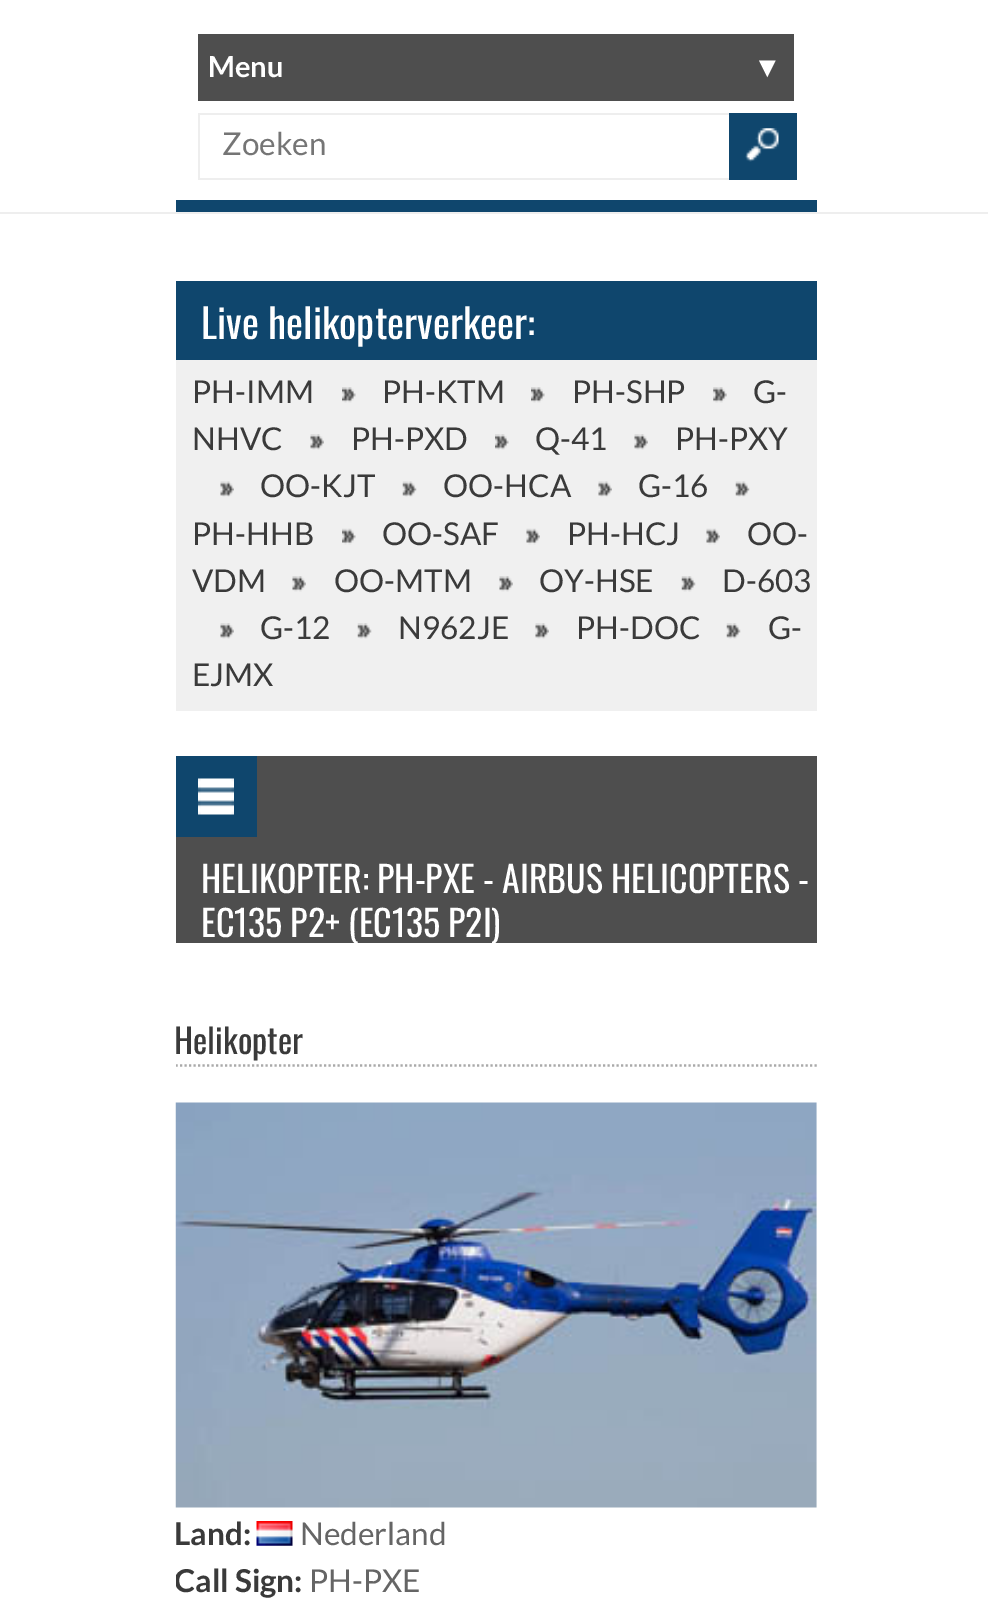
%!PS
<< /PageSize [988 1620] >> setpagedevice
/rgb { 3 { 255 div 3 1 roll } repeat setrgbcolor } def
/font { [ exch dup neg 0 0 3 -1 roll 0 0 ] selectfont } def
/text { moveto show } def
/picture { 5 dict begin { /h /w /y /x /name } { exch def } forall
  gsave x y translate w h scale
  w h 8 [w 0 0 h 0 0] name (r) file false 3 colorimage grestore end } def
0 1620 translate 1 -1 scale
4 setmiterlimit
255 255 255 rgb
0 0 988 1620 rectfill
238 238 238 rgb
0 212 988 2 rectfill
15 70 109 rgb
176 200 641 12 rectfill
78 78 78 rgb
198 34 596 67 rectfill
238 238 238 rgb
198 113 531 2 rectfill
198 178 531 2 rectfill
198 113 2 67 rectfill
15 70 109 rgb
729 113 68 67 rectfill
(img_01.rgb) 745 128 34 34 picture
240 240 240 rgb
176 360 641 351 rectfill
15 70 109 rgb
176 281 641 79 rectfill
(img_02.rgb) 342 387 14 16 picture
(img_03.rgb) 531 387 14 16 picture
(img_04.rgb) 713 387 14 16 picture
(img_05.rgb) 310 434 14 16 picture
(img_06.rgb) 495 434 14 16 picture
(img_05.rgb) 634 434 14 16 picture
(img_07.rgb) 220 481 14 16 picture
(img_08.rgb) 402 481 15 16 picture
(img_09.rgb) 598 481 14 16 picture
(img_10.rgb) 735 481 15 16 picture
(img_11.rgb) 342 528 14 17 picture
(img_12.rgb) 526 528 14 17 picture
(img_13.rgb) 706 528 14 17 picture
(img_14.rgb) 292 576 14 16 picture
(img_15.rgb) 499 576 14 16 picture
(img_16.rgb) 681 576 15 16 picture
(img_17.rgb) 220 623 14 16 picture
(img_18.rgb) 357 623 15 16 picture
(img_05.rgb) 535 623 14 16 picture
(img_18.rgb) 726 623 15 16 picture
78 78 78 rgb
176 756 641 187 rectfill
15 70 109 rgb
176 756 81 81 rectfill
(img_19.rgb) 198 778 36 37 picture
gsave
176 756 641 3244 rectclip
170 170 170 rgb
2.2 setlinewidth
[2.25 2.25] 0 setdash
175.5 1065.5 moveto 641.5 0 rlineto stroke
grestore
(img_20.rgb) 175 1102 642 406 picture
(img_21.rgb) 256 1521 37 25 picture
/Lato-Bold 29 font
255 255 255 rgb
(Menu) 208 77 text
/LiberationSans-Bold 29 font
(▼) 753 77 text
/Lato-Regular 31.5 font
117 117 117 rgb
(Zoeken) 222 155 text
/Oswald-Regular 40.5 font
255 255 255 rgb
(Live helikopterverkeer:) 201 339 text
/Lato-Regular 31.5 font
58 58 58 rgb
(PH-IMM) 192 403 text
(PH-KTM) 382 403 text
(PH-SHP) 572 403 text
(G-) 753 403 text
(NHVC) 192 450 text
(PH-PXD) 351 450 text
(Q-41) 535 450 text
(PH-PXY) 675 450 text
(OO-KJT) 260 497 text
(OO-HCA) 443 497 text
(G-16) 638 497 text
(PH-HHB) 192 545 text
(OO-SAF) 382 545 text
(PH-HCJ) 567 545 text
(OO-) 747 545 text
(VDM) 192 592 text
(OO-MTM) 334 592 text
(OY-HSE) 539 592 text
(D-603) 722 592 text
(G-12) 260 639 text
(N962JE) 398 639 text
(PH-DOC) 576 639 text
(G-) 768 639 text
(EJMX) 192 686 text
/Oswald-Regular 36 font
255 255 255 rgb
(HELIKOPTER: PH-PXE - AIRBUS HELICOPTERS -) 201 893 text
gsave
176 756 641 187 rectclip
(EC135 P2+ \(EC135 P2I\)) 201 937 text
grestore
/Oswald-Regular 34 font
58 58 58 rgb
(Helikopter) 174 1054 text
/Lato-Bold 31.5 font
(Land:) 174 1545 text
/Lato-Regular 31.5 font
101 101 101 rgb
(Nederland) 300 1545 text
gsave
176 756 641 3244 rectclip
/Lato-Bold 31.5 font
58 58 58 rgb
(Call Sign:) 174 1592 text
grestore
(PH-PXE) 309 1592 text
showpage
